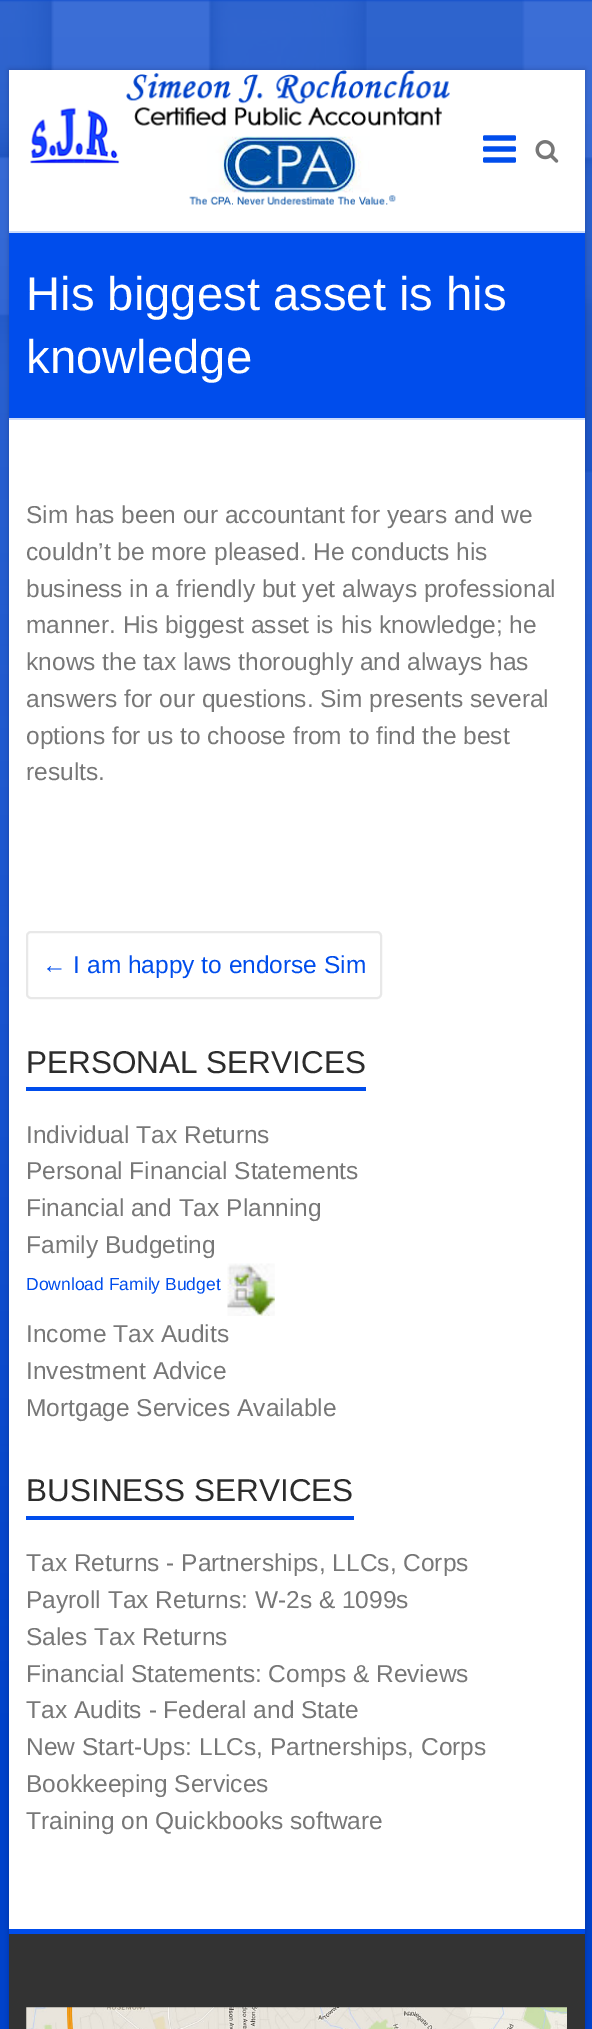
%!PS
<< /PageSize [592 2029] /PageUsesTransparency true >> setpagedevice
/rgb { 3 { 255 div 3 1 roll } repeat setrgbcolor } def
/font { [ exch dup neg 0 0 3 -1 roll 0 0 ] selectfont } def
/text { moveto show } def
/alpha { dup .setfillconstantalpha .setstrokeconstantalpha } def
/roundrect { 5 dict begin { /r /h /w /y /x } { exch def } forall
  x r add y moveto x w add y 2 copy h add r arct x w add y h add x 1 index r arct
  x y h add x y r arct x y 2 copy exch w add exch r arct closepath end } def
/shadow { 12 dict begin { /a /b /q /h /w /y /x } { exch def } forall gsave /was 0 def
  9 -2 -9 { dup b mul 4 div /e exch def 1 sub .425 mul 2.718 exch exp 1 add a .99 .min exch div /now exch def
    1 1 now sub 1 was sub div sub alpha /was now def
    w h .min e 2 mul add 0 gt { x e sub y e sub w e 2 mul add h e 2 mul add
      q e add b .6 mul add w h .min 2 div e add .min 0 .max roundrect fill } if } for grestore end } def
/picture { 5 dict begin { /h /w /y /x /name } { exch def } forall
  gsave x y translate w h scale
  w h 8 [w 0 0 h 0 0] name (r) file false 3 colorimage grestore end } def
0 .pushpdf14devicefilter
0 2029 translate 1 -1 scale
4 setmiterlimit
255 255 255 rgb
0 0 592 2029 rectfill
(img_01.rgb) 0 0 592 2029 picture
0 0 0 rgb
9 70 576 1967 0 2.5 0.2 shadow
255 255 255 rgb
9 70 576 1859 rectfill
(img_02.rgb) 30 70 420 135 picture
(img_03.rgb) 483 135 33 28 picture
(img_04.rgb) 535 140 24 23 picture
0 77 236 rgb
9 233 576 185 rectfill
204 219 251 rgb
9 231 576 2 rectfill
9 418 576 2 rectfill
232 232 232 rgb
2 setlinewidth
27 932 354 66 4 roundrect stroke
0 77 236 rgb
26 1087 340 4 rectfill
(img_05.rgb) 227 1263 48 53 picture
26 1516 328 4 rectfill
51 51 51 rgb
9 1934 576 95 rectfill
0 77 236 rgb
9 1929 576 5 rectfill
(img_06.rgb) 26 2007 541 22 picture
/LiberationSans-Regular 47.25 font
255 255 255 rgb
(His biggest asset is his) 26 310 text
(knowledge) 26 373 text
/LiberationSans-Regular 24.5 font
119 119 119 rgb
(Sim has been our accountant for years and we) 26 523 text
(couldn’t be more pleased. He conducts his) 26 560 text
(business in a friendly but yet always professional) 26 597 text
(manner. His biggest asset is his knowledge; he) 26 633 text
(knows the tax laws thoroughly and always has) 26 670 text
(answers for our questions. Sim presents several) 26 707 text
(options for us to choose from to find the best) 26 744 text
(results.) 26 780 text
0 77 236 rgb
(← I am happy to endorse Sim) 42 973 text
/LiberationSans-Regular 31.5 font
44 44 44 rgb
(PERSONAL SERVICES) 26 1073 text
/LiberationSans-Regular 24.5 font
119 119 119 rgb
(Individual Tax Returns) 26 1143 text
(Personal Financial Statements) 26 1179 text
(Financial and Tax Planning) 26 1216 text
(Family Budgeting) 26 1253 text
/LiberationSans-Regular 17.5 font
0 77 236 rgb
(Download Family Budget) 26 1290 text
/LiberationSans-Regular 24.5 font
119 119 119 rgb
(Income Tax Audits) 26 1342 text
(Investment Advice) 26 1379 text
(Mortgage Services Available) 26 1416 text
/LiberationSans-Regular 31.5 font
44 44 44 rgb
(BUSINESS SERVICES) 26 1501 text
/LiberationSans-Regular 24.5 font
119 119 119 rgb
(Tax Returns - Partnerships, LLCs, Corps) 26 1571 text
(Payroll Tax Returns: W-2s & 1099s) 26 1608 text
(Sales Tax Returns) 26 1645 text
(Financial Statements: Comps & Reviews) 26 1682 text
(Tax Audits - Federal and State) 26 1718 text
(New Start-Ups: LLCs, Partnerships, Corps) 26 1755 text
(Bookkeeping Services) 26 1792 text
(Training on Quickbooks software) 26 1829 text
.poppdf14devicefilter showpage
